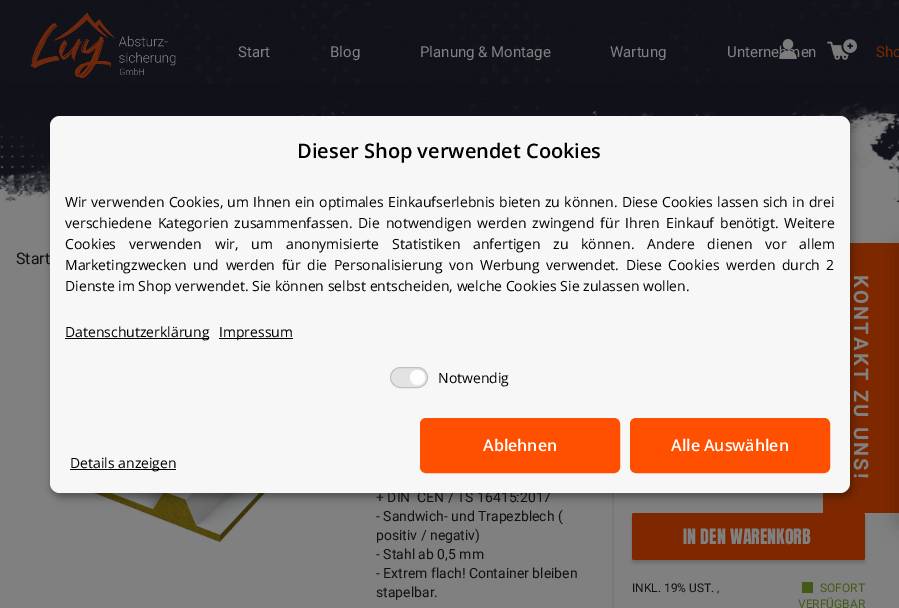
%!PS
<< /PageSize [899 608] /PageUsesTransparency true >> setpagedevice
/rgb { 3 { 255 div 3 1 roll } repeat setrgbcolor } def
/font { [ exch dup neg 0 0 3 -1 roll 0 0 ] selectfont } def
/text { moveto show } def
/alpha { dup .setfillconstantalpha .setstrokeconstantalpha } def
/circle { newpath 0 360 arc closepath } def
/roundrect { 5 dict begin { /r /h /w /y /x } { exch def } forall
  x r add y moveto x w add y 2 copy h add r arct x w add y h add x 1 index r arct
  x y h add x y r arct x y 2 copy exch w add exch r arct closepath end } def
/shadow { 12 dict begin { /a /b /q /h /w /y /x } { exch def } forall gsave /was 0 def
  9 -2 -9 { dup b mul 4 div /e exch def 1 sub .425 mul 2.718 exch exp 1 add a .99 .min exch div /now exch def
    1 1 now sub 1 was sub div sub alpha /was now def
    w h .min e 2 mul add 0 gt { x e sub y e sub w e 2 mul add h e 2 mul add
      q e add b .6 mul add w h .min 2 div e add .min 0 .max roundrect fill } if } for grestore end } def
/picture { 5 dict begin { /h /w /y /x /name } { exch def } forall
  gsave x y translate w h scale
  w h 8 [w 0 0 h 0 0] name (r) file false 3 colorimage grestore end } def
0 .pushpdf14devicefilter
0 608 translate 1 -1 scale
4 setmiterlimit
128 128 128 rgb
0 0 899 608 rectfill
(img_01.rgb) 0 0 899 202 picture
(img_02.rgb) 0 69 899 133 picture
(img_03.rgb) 5 0 894 84 picture
(img_04.rgb) 30 12 146 66 picture
(img_06.rgb) 827 39 30 21 picture
(img_07.rgb) 1 84 898 52 picture
(img_08.rgb) 54 491 219 52 picture
120 120 120 rgb
612 493 2 115 rectfill
0 0 0 rgb
632 516 233 47 2 1.5 0.16 shadow
127 40 0 rgb
632 513 233 47 2 roundrect fill
823 243 76 270 rectfill
0 0 0 rgb
55 121 800 377 10 5 0.19 shadow
50 120 800 377 10 3 0.2 shadow
68 89 21 rgb
802 582 11 11 rectfill
0 0 0 rgb
898 248 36 276 0 11.5 0.2 shadow
/Roboto-Regular 15 font
128 128 128 rgb
(Start) 238 57 text
(Blog) 330 57 text
(Planung & Montage) 420 57 text
(Wartung) 610 57 text
(Unternehmen) 727 57 text
(img_05.rgb) 779 39 18 20 picture
123 39 1 rgb
(Sho) 876 57 text
/Roboto-Regular 16 font
17 17 17 rgb
(Start) 16 264 text
/Roboto-Regular 14 font
(+ DIN  CEN / TS 16415:2017) 376 502 text
248 247 247 rgb
50 116 800 377 10 roundrect fill
227 227 227 rgb
390.5 367.5 37 20 10 roundrect gsave fill grestore
193 193 193 rgb
stroke
254 254 254 rgb
417.5 377.5 7.5 circle fill
/OpenSans-Regular 14 font
0 0 0 rgb
(Notwendig) 438 383 text
254 80 0 rgb
631 419 198 53 5 roundrect gsave fill grestore
2 setlinewidth
stroke
/OpenSans-SemiBold 16 font
255 255 255 rgb
(Alle Auswählen) 671 451 text
254 80 0 rgb
421 419 198 53 5 roundrect gsave fill grestore
stroke
255 255 255 rgb
(Ablehnen) 483 451 text
0 0 0 rgb
70 469 106 1 rectfill
/OpenSans-Regular 14 font
(Details anzeigen) 70 468 text
219 338 74 1 rectfill
(Impressum) 219 337 text
65 338 144 1 rectfill
(Datenschutzerklärung) 65 337 text
(Dienste im Shop verwendet. Sie können selbst entscheiden, welche Cookies Sie zulassen wollen.) 65 291 text
65 270 moveto 2.9 0 32 (Marketingzwecken und werden für die Personalisierung von Werbung verwendet. Diese Cookies werden durch 2) widthshow
65 249 moveto 9.25 0 32 (Cookies verwenden wir, um anonymisierte Statistiken anfertigen zu können. Andere dienen vor allem) widthshow
65 228 moveto 2.25 0 32 (verschiedene Kategorien zusammenfassen. Die notwendigen werden zwingend für Ihren Einkauf benötigt. Weitere) widthshow
65 207 moveto 0.6 0 32 (Wir verwenden Cookies, um Ihnen ein optimales Einkaufserlebnis bieten zu können. Diese Cookies lassen sich in drei) widthshow
/OpenSans-SemiBold 20 font
(Dieser Shop verwendet Cookies) 297 158 text
/Roboto-Regular 14 font
17 17 17 rgb
(- Sandwich- und Trapezblech \() 376 521 text
(positiv / negativ\)) 376 540 text
(- Stahl ab 0,5 mm) 376 559 text
(- Extrem flach! Container bleiben) 376 578 text
(stapelbar.) 376 597 text
/Anton-Regular 18 font
128 128 128 rgb
(IN DEN WARENKORB) 683 544 text
/Roboto-Regular 12 font
17 17 17 rgb
(INKL. 19% UST. ,) 632 592 text
68 89 21 rgb
(SOFORT) 820 592 text
(VERFÜGBAR) 798 608 text
/Roboto-Bold 20 font
128 128 128 rgb
gsave 854 275 translate 90 rotate 0 0 moveto 2.25 0 (KONTAKT ZU UNS!) ashow grestore
.poppdf14devicefilter showpage
